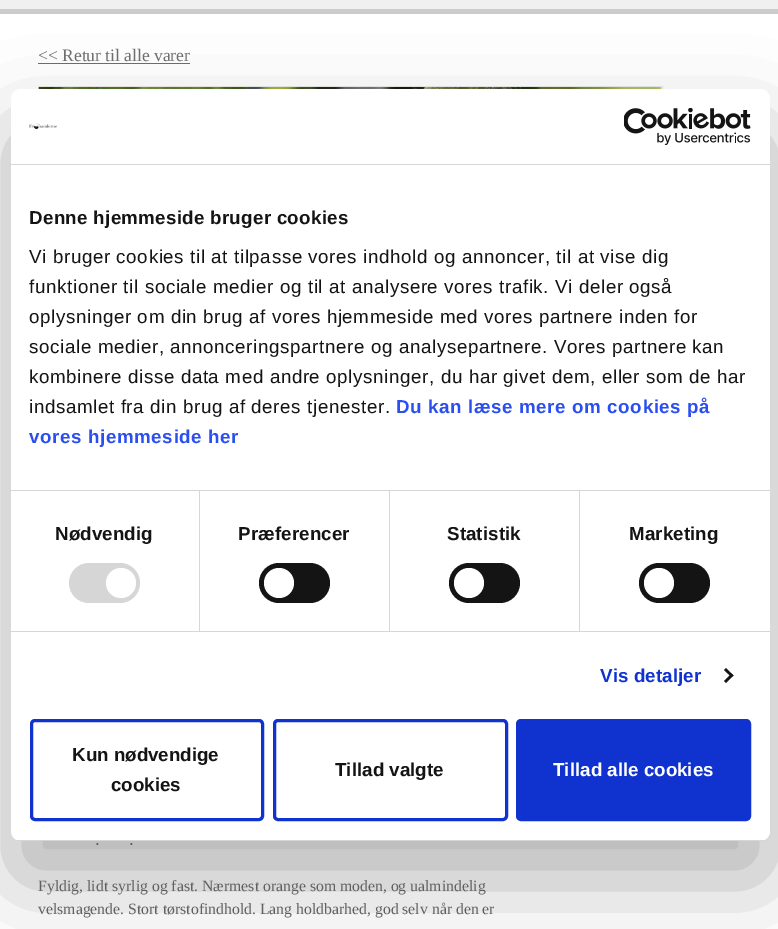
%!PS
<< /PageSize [778 929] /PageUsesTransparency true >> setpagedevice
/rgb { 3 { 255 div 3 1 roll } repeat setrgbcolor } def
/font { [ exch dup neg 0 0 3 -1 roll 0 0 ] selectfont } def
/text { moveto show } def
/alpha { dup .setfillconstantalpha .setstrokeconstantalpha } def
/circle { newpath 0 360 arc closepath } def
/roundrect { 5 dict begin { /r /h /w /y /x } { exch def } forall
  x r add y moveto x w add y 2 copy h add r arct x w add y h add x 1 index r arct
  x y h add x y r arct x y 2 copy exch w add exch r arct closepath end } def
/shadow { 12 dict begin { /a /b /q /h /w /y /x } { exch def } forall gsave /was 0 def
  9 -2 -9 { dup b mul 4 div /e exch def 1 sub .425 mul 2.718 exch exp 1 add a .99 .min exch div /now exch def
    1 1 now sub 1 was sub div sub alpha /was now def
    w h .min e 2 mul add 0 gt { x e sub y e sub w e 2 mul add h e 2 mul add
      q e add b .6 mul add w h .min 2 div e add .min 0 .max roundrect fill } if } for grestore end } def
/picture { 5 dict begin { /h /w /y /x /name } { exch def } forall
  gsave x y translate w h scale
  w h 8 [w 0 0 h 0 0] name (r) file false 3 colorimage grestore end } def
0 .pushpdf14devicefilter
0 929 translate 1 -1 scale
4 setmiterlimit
255 255 255 rgb
0 0 778 929 rectfill
204 204 204 rgb
0 9 778 5 rectfill
240 240 240 rgb
0 0 778 9 rectfill
111 109 112 rgb
38 63 152 1 rectfill
236 232 229 rgb
38.5 86.5 624 624 rectstroke
(img_01.rgb) 38 87 624 2 picture
0 0 0 rgb
11 129 759 752 10 42.5 0.3 shadow
255 255 255 rgb
11 89 759 752 10 roundrect fill
214 214 214 rgb
11 164 759 1 rectfill
(img_02.rgb) 29 123 28 7 picture
(img_03.rgb) 624 108 127 37 picture
11 490 759 1 rectfill
11 631 759 1 rectfill
199 491 1 140 rectfill
69 563 71 40 20 roundrect fill
255 255 255 rgb
121 583 15 circle fill
214 214 214 rgb
389 491 1 140 rectfill
20 20 20 rgb
259 563 71 40 20 roundrect fill
255 255 255 rgb
279 583 15 circle fill
214 214 214 rgb
579 491 1 140 rectfill
20 20 20 rgb
449 563 71 40 20 roundrect fill
255 255 255 rgb
469 583 15 circle fill
20 20 20 rgb
639 563 71 40 20 roundrect fill
255 255 255 rgb
659 583 15 circle fill
20 20 20 rgb
726 668 moveto 7.5 7.5 rlineto -2 1.5 rlineto -7.5 -7 rlineto closepath fill
731.5 673.5 moveto 2 2 rlineto -7.5 7.5 rlineto -2 -2 rlineto closepath fill
gsave
11 89 759 752 10 roundrect clip newpath
214 214 214 rgb
11 840 759 1 rectfill
grestore
16 50 207 rgb
3 setlinewidth
31.5 720.5 231 99 3.5 roundrect stroke
274.5 720.5 232 99 3.5 roundrect stroke
517.5 720.5 232 99 3.5 roundrect gsave fill grestore
stroke
/LiberationSerif-Regular 17.5 font
111 109 112 rgb
(<< Retur til alle varer) 38 61 text
/LiberationSans-Regular 17.5 font
96 96 96 rgb
(.) 95 845 text
(.) 129 845 text
/LiberationSerif-Regular 15.75 font
(Fyldig, lidt syrlig og fast. Nærmest orange som moden, og ualmindelig) 38 891 text
(velsmagende. Stort tørstofindhold. Lang holdbarhed, god selv når den er) 38 914 text
/LiberationSans-Bold 18.75 font
20 20 20 rgb
29 224 moveto 0.3 0 (Denne hjemmeside bruger cookies) ashow
/LiberationSans-Regular 18.75 font
29 263 moveto 0.62 0 (Vi bruger cookies til at tilpasse vores indhold og annoncer, til at vise dig) ashow
29 293 moveto 0.62 0 (funktioner til sociale medier og til at analysere vores trafik. Vi deler også) ashow
29 323 moveto 0.62 0 (oplysninger om din brug af vores hjemmeside med vores partnere inden for) ashow
29 353 moveto 0.62 0 (sociale medier, annonceringspartnere og analysepartnere. Vores partnere kan) ashow
29 383 moveto 0.62 0 (kombinere disse data med andre oplysninger, du har givet dem, eller som de har) ashow
29 413 moveto 0.62 0 (indsamlet fra din brug af deres tjenester.) ashow
/LiberationSans-Bold 18.75 font
42 78 239 rgb
396 413 moveto 0.62 0 (Du kan læse mere om cookies på) ashow
29 443 moveto 0.62 0 (vores hjemmeside her) ashow
20 20 20 rgb
55 540 moveto 0.1 0 (Nødvendig) ashow
238 540 moveto 0.1 0 (Præferencer) ashow
447 540 moveto 0.1 0 (Statistik) ashow
629 540 moveto 0.1 0 (Marketing) ashow
16 50 207 rgb
600 682 moveto 0.1 0 (Vis detaljer) ashow
20 20 20 rgb
(Kun nødvendige) 72 761 text
(cookies) 111 791 text
(Tillad valgte) 335 776 text
255 255 255 rgb
(Tillad alle cookies) 553 776 text
.poppdf14devicefilter showpage
